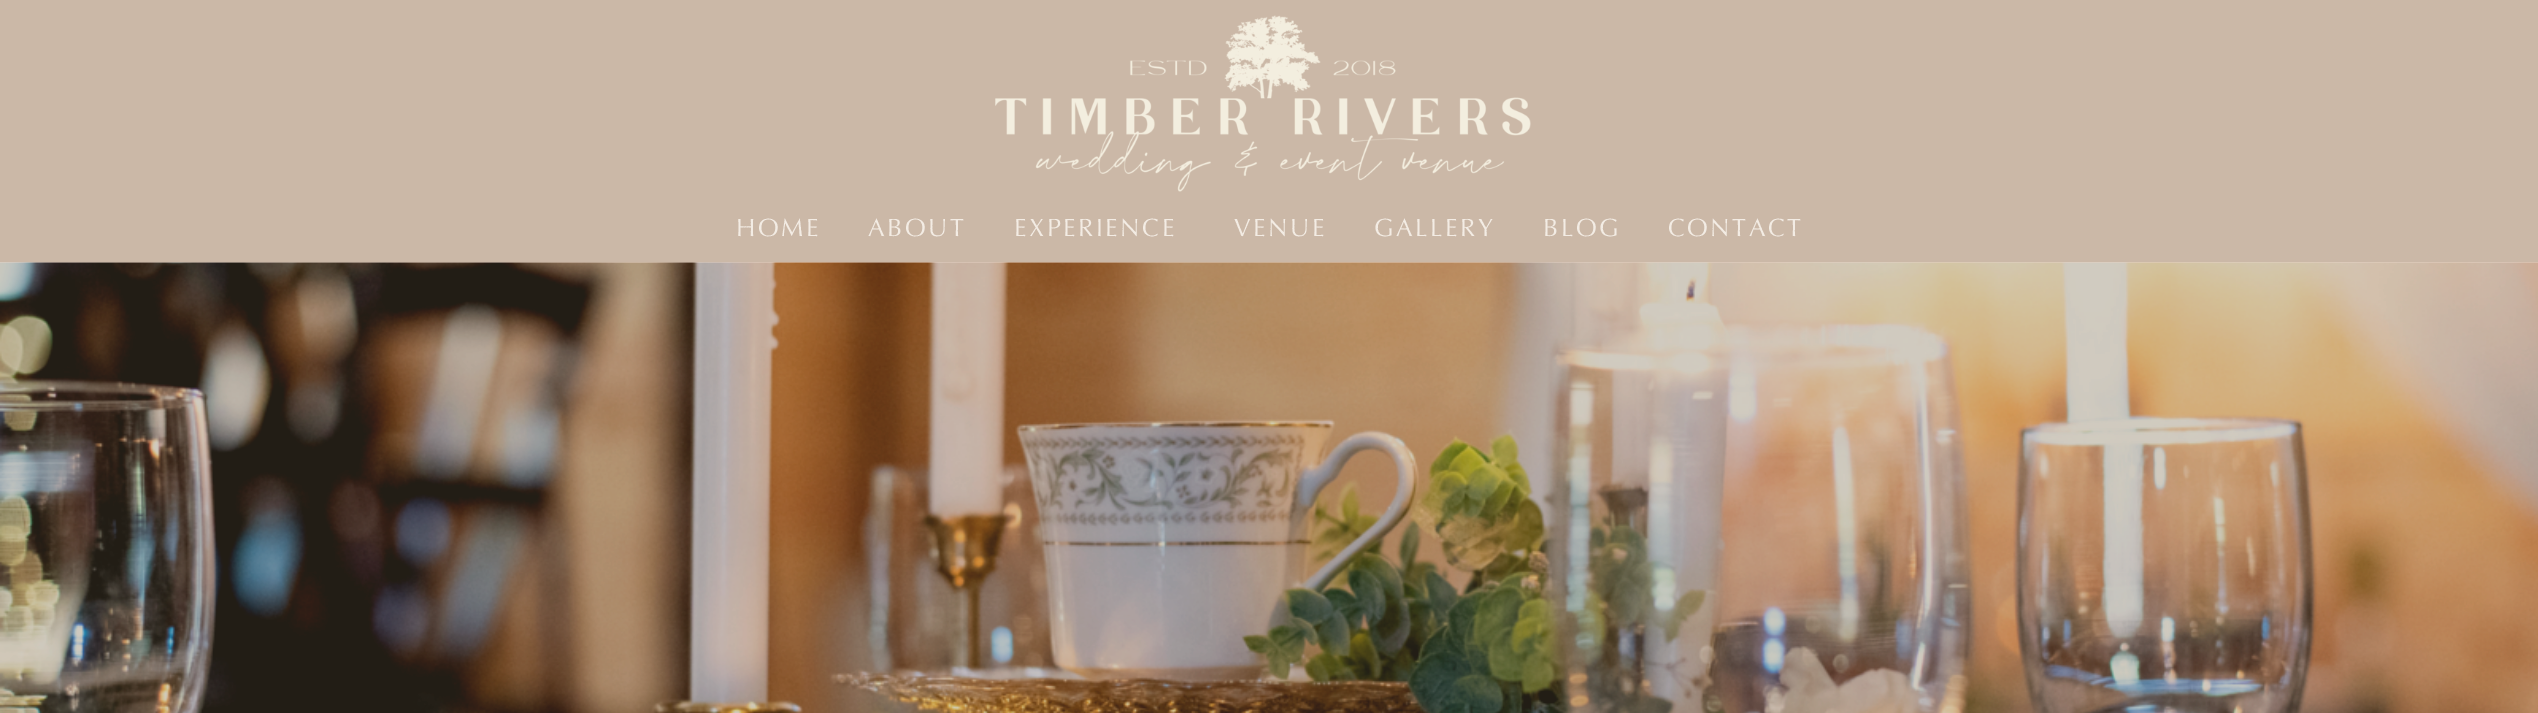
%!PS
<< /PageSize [2538 713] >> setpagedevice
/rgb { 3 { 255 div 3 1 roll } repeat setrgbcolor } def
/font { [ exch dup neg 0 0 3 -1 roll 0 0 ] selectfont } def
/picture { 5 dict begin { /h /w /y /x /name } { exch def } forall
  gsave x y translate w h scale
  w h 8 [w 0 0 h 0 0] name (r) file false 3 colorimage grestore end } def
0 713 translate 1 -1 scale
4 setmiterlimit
255 255 255 rgb
0 0 2538 713 rectfill
203 184 167 rgb
0 0 2538 263 rectfill
(img_01.rgb) 995 15 536 177 picture
(img_02.rgb) 0 262 2538 451 picture
/Optima-Regular 25 font
243 236 228 rgb
736 236 moveto 2.5 0 (HOME) ashow
868 236 moveto 2.5 0 (ABOUT) ashow
1014 236 moveto 2.5 0 (EXPERIENCE) ashow
1234 236 moveto 2.5 0 (VENUE) ashow
1374 236 moveto 2.5 0 (GALLERY) ashow
1543 236 moveto 2.5 0 (BLOG) ashow
1668 236 moveto 2.5 0 (CONTACT) ashow
showpage
